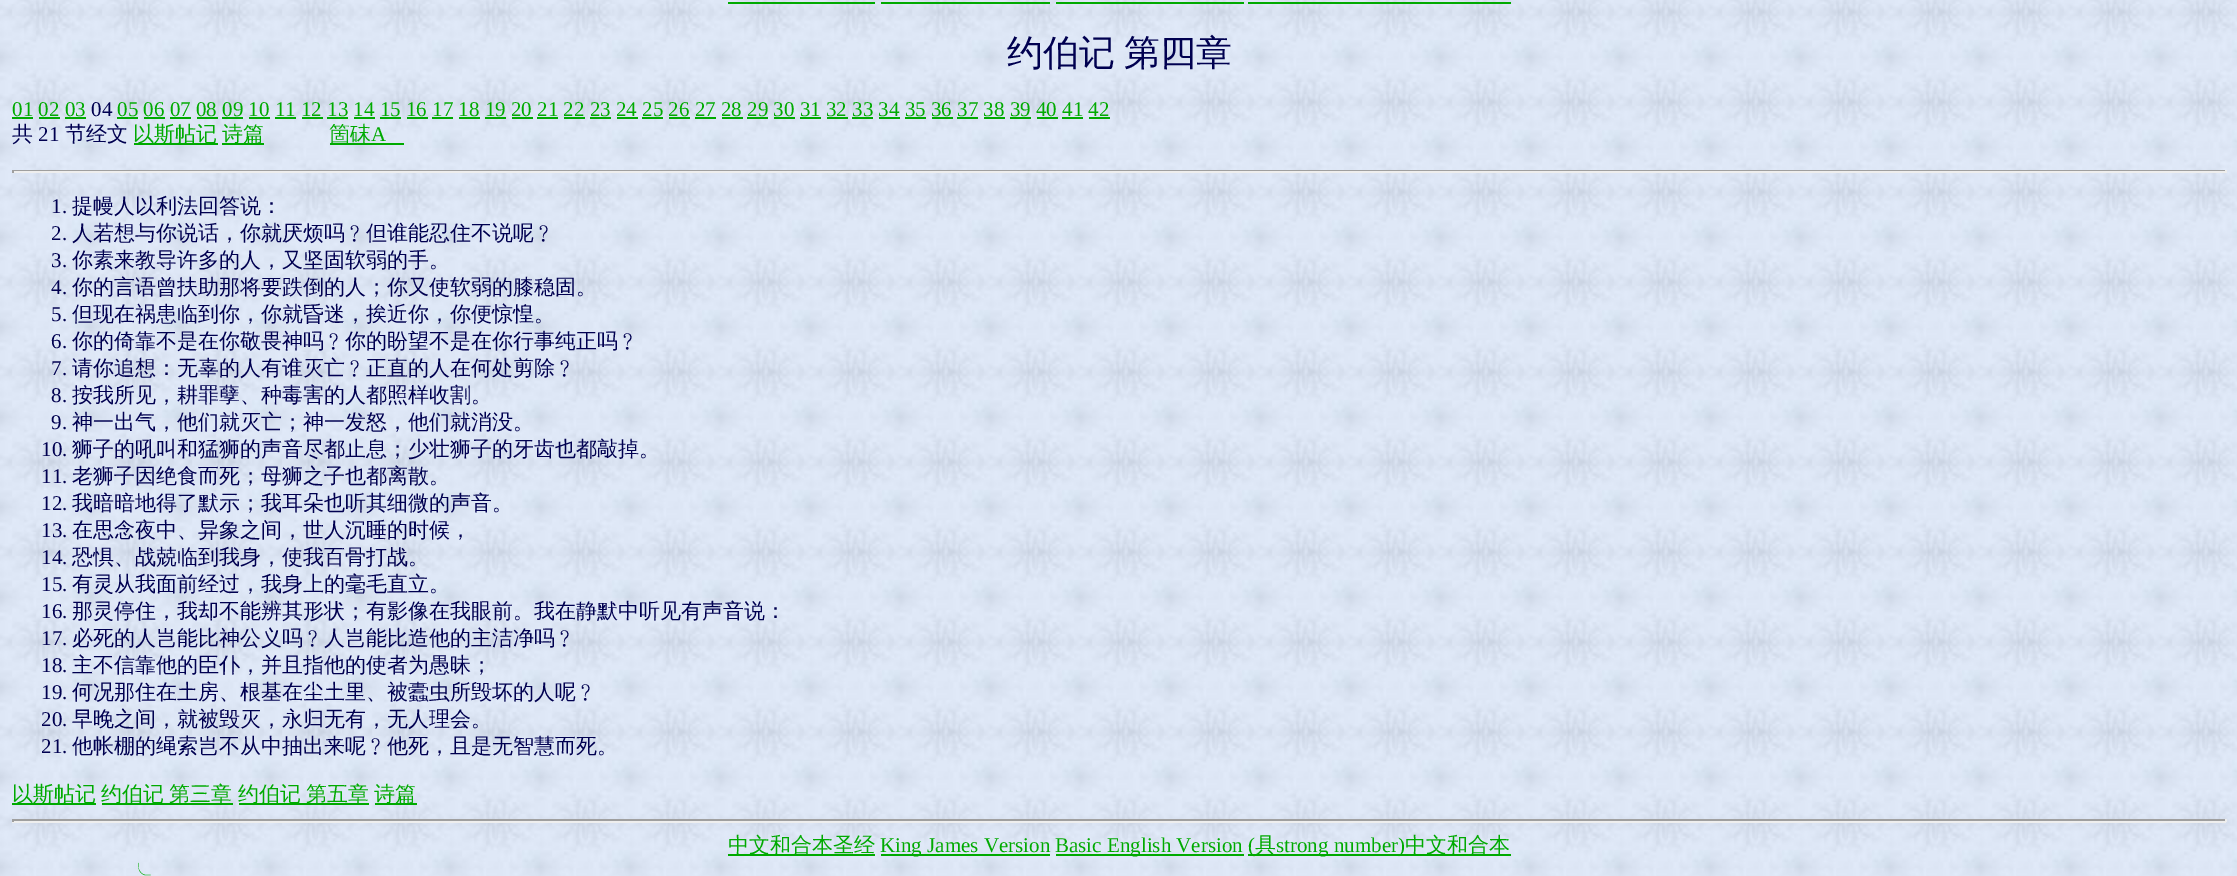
%!PS
<< /PageSize [2237 876] >> setpagedevice
/rgb { 3 { 255 div 3 1 roll } repeat setrgbcolor } def
/font { [ exch dup neg 0 0 3 -1 roll 0 0 ] selectfont } def
/text { moveto show } def
/picture { 5 dict begin { /h /w /y /x /name } { exch def } forall
  gsave x y translate w h scale
  w h 8 [w 0 0 h 0 0] name (r) file false 3 colorimage grestore end } def
0 876 translate 1 -1 scale
4 setmiterlimit
255 255 255 rgb
0 0 2237 876 rectfill
(img_01.rgb) 0 0 2237 876 picture
0 170 0 rgb
728 2 147 2 rectfill
881 2 169 2 rectfill
1056 2 188 2 rectfill
1248 2 263 2 rectfill
12 117 21 2 rectfill
117 117 21 2 rectfill
39 117 21 2 rectfill
65 117 21 2 rectfill
144 117 21 2 rectfill
170 117 21 2 rectfill
197 117 21 2 rectfill
222 117 21 2 rectfill
249 117 21 2 rectfill
275 117 21 2 rectfill
302 117 21 2 rectfill
327 117 21 2 rectfill
354 117 21 2 rectfill
380 117 21 2 rectfill
407 117 21 2 rectfill
432 117 21 2 rectfill
459 117 21 2 rectfill
485 117 21 2 rectfill
512 117 21 2 rectfill
537 117 21 2 rectfill
564 117 21 2 rectfill
590 117 21 2 rectfill
617 117 21 2 rectfill
642 117 21 2 rectfill
669 117 21 2 rectfill
695 117 21 2 rectfill
722 117 21 2 rectfill
747 117 21 2 rectfill
774 117 21 2 rectfill
800 117 21 2 rectfill
827 117 21 2 rectfill
852 117 21 2 rectfill
879 117 21 2 rectfill
905 117 21 2 rectfill
932 117 21 2 rectfill
957 117 21 2 rectfill
984 117 21 2 rectfill
1010 117 21 2 rectfill
1037 117 21 2 rectfill
1062 117 21 2 rectfill
1089 117 21 2 rectfill
134 143 84 2 rectfill
222 143 42 2 rectfill
330 143 74 2 rectfill
159 159 159 rgb
12 170 2214 1 rectfill
238 238 238 rgb
2225 170 2 3 rectfill
12 171 2214 2 rectfill
159 159 159 rgb
12 170 2 3 rectfill
0 170 0 rgb
12 803 84 2 rectfill
102 803 131 2 rectfill
239 803 130 2 rectfill
375 803 42 2 rectfill
159 159 159 rgb
12 819 2214 2 rectfill
238 238 238 rgb
2225 819 2 3 rectfill
12 821 2214 2 rectfill
159 159 159 rgb
12 819 2 3 rectfill
0 170 0 rgb
728 854 147 2 rectfill
881 854 169 2 rectfill
1056 854 188 2 rectfill
1248 854 263 2 rectfill
/WenQuanYiZenHei-Medium 36 font
0 0 80 rgb
1007 65 moveto -2 0 32 (约伯记 第四章) widthshow
/LiberationSerif-Regular 21 font
0 170 0 rgb
(01 02 03) 12 116 text
0 0 80 rgb
(04) 91 116 text
0 170 0 rgb
(05 06 07 08 09 10 11 12 13 14 15 16 17 18 19 20 21 22 23 24 25 26 27 28 29 30 31 32 33 34 35 36 37 38 39 40 41 42) 117 116 text
/WenQuanYiZenHei-Medium 21 font
0 0 80 rgb
(共) 12 141 text
/LiberationSerif-Regular 21 font
(21) 38 141 text
/WenQuanYiZenHei-Medium 21 font
(节经文) 65 141 text
0 170 0 rgb
(以斯帖记) 133 141 text
(诗篇) 222 141 text
(箇砞) 329 141 text
/LiberationSerif-Regular 21 font
(Α) 371 141 text
0 0 80 rgb
(1.) 51 213 text
/WenQuanYiZenHei-Medium 21 font
(提幔人以利法回答说：) 72 213 text
/LiberationSerif-Regular 21 font
(2.) 51 240 text
/WenQuanYiZenHei-Medium 21 font
(人若想与你说话，你就厌烦吗﹖但谁能忍住不说呢﹖) 72 240 text
/LiberationSerif-Regular 21 font
(3.) 51 267 text
/WenQuanYiZenHei-Medium 21 font
(你素来教导许多的人，又坚固软弱的手。) 72 267 text
/LiberationSerif-Regular 21 font
(4.) 51 294 text
/WenQuanYiZenHei-Medium 21 font
(你的言语曾扶助那将要跌倒的人；你又使软弱的膝稳固。) 72 294 text
/LiberationSerif-Regular 21 font
(5.) 51 321 text
/WenQuanYiZenHei-Medium 21 font
(但现在祸患临到你，你就昏迷，挨近你，你便惊惶。) 72 321 text
/LiberationSerif-Regular 21 font
(6.) 51 348 text
/WenQuanYiZenHei-Medium 21 font
(你的倚靠不是在你敬畏神吗﹖你的盼望不是在你行事纯正吗﹖) 72 348 text
/LiberationSerif-Regular 21 font
(7.) 51 375 text
/WenQuanYiZenHei-Medium 21 font
(请你追想：无辜的人有谁灭亡﹖正直的人在何处剪除﹖) 72 375 text
/LiberationSerif-Regular 21 font
(8.) 51 402 text
/WenQuanYiZenHei-Medium 21 font
(按我所见，耕罪孽、种毒害的人都照样收割。) 72 402 text
/LiberationSerif-Regular 21 font
(9.) 51 429 text
/WenQuanYiZenHei-Medium 21 font
(神一出气，他们就灭亡；神一发怒，他们就消没。) 72 429 text
/LiberationSerif-Regular 21 font
(10.) 41 456 text
/WenQuanYiZenHei-Medium 21 font
(狮子的吼叫和猛狮的声音尽都止息；少壮狮子的牙齿也都敲掉。) 72 456 text
/LiberationSerif-Regular 21 font
(11.) 41 483 text
/WenQuanYiZenHei-Medium 21 font
(老狮子因绝食而死；母狮之子也都离散。) 72 483 text
/LiberationSerif-Regular 21 font
(12.) 41 510 text
/WenQuanYiZenHei-Medium 21 font
(我暗暗地得了默示；我耳朵也听其细微的声音。) 72 510 text
/LiberationSerif-Regular 21 font
(13.) 41 537 text
/WenQuanYiZenHei-Medium 21 font
(在思念夜中、异象之间，世人沉睡的时候，) 72 537 text
/LiberationSerif-Regular 21 font
(14.) 41 564 text
/WenQuanYiZenHei-Medium 21 font
(恐惧、战兢临到我身，使我百骨打战。) 72 564 text
/LiberationSerif-Regular 21 font
(15.) 41 591 text
/WenQuanYiZenHei-Medium 21 font
(有灵从我面前经过，我身上的毫毛直立。) 72 591 text
/LiberationSerif-Regular 21 font
(16.) 41 618 text
/WenQuanYiZenHei-Medium 21 font
(那灵停住，我却不能辨其形状；有影像在我眼前。我在静默中听见有声音说：) 72 618 text
/LiberationSerif-Regular 21 font
(17.) 41 645 text
/WenQuanYiZenHei-Medium 21 font
(必死的人岂能比神公义吗﹖人岂能比造他的主洁净吗﹖) 72 645 text
/LiberationSerif-Regular 21 font
(18.) 41 672 text
/WenQuanYiZenHei-Medium 21 font
(主不信靠他的臣仆，并且指他的使者为愚昧；) 72 672 text
/LiberationSerif-Regular 21 font
(19.) 41 699 text
/WenQuanYiZenHei-Medium 21 font
(何况那住在土房、根基在尘土里、被蠹虫所毁坏的人呢﹖) 72 699 text
/LiberationSerif-Regular 21 font
(20.) 41 726 text
/WenQuanYiZenHei-Medium 21 font
(早晚之间，就被毁灭，永归无有，无人理会。) 72 726 text
/LiberationSerif-Regular 21 font
(21.) 41 753 text
/WenQuanYiZenHei-Medium 21 font
(他帐棚的绳索岂不从中抽出来呢﹖他死，且是无智慧而死。) 72 753 text
0 170 0 rgb
(以斯帖记) 12 801 text
101 801 moveto -1 0 32 (约伯记 第三章) widthshow
238 801 moveto -1 0 32 (约伯记 第五章) widthshow
(诗篇) 374 801 text
(中文和合本圣经) 728 852 text
/LiberationSerif-Regular 21 font
(King James Version) 880 852 text
(Basic English Version) 1055 852 text
(\() 1248 852 text
/WenQuanYiZenHei-Medium 21 font
(具) 1255 852 text
/LiberationSerif-Regular 21 font
(strong number\)) 1276 852 text
/WenQuanYiZenHei-Medium 21 font
(中文和合本) 1405 852 text
/WenQuanYiZenHei-Medium 24 font
(╰) 127 882 text
showpage
